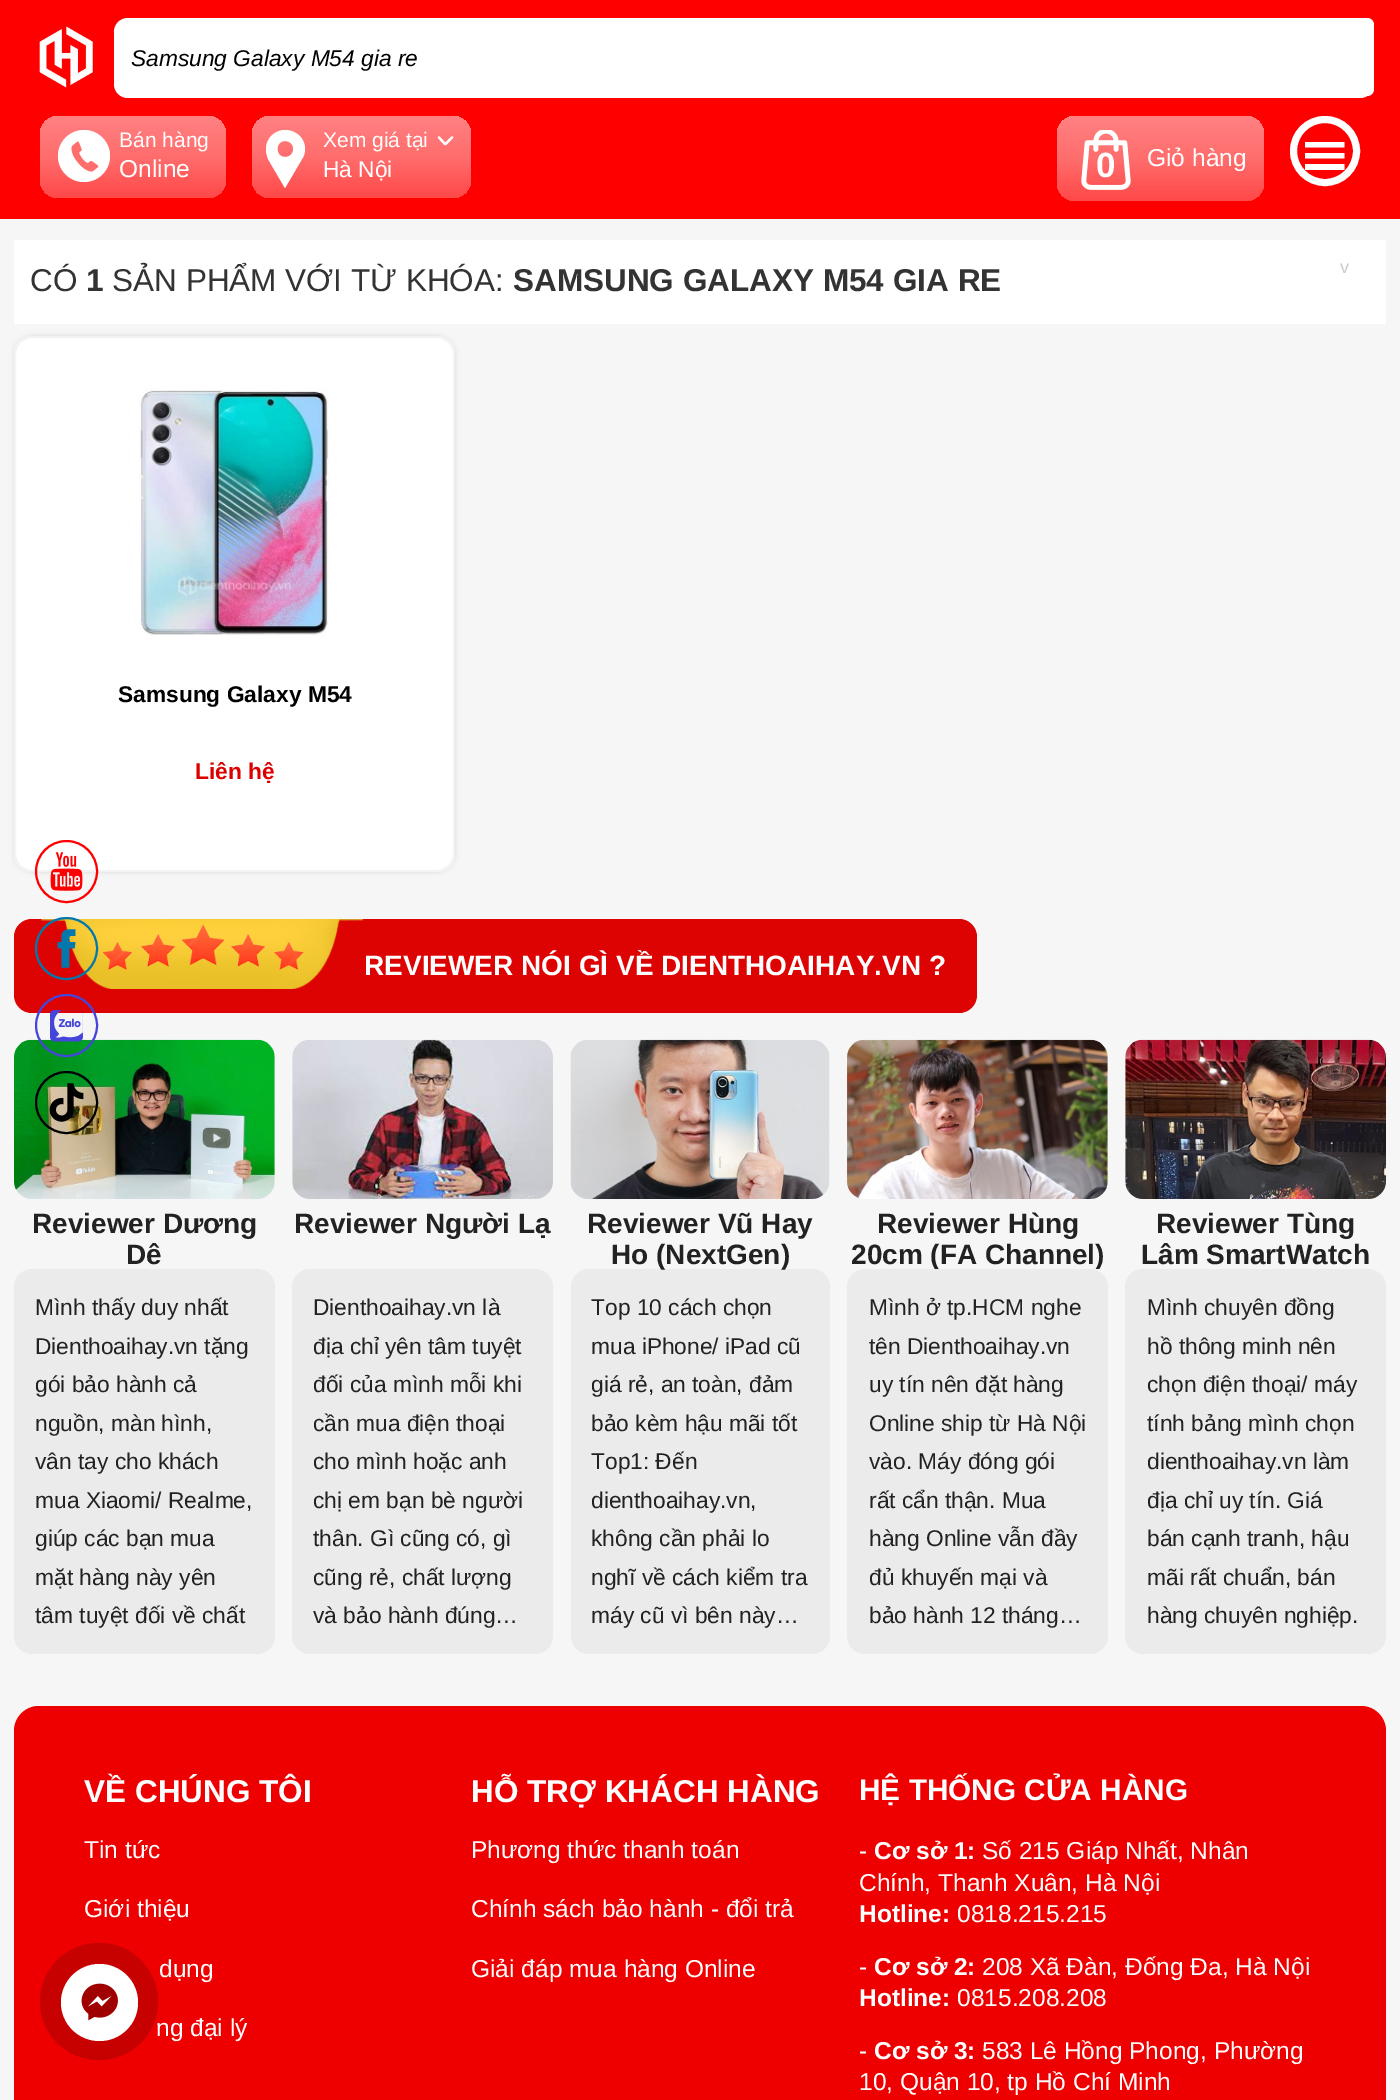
%!PS
<< /PageSize [1400 2100] /PageUsesTransparency true >> setpagedevice
/rgb { 3 { 255 div 3 1 roll } repeat setrgbcolor } def
/font { [ exch dup neg 0 0 3 -1 roll 0 0 ] selectfont } def
/text { moveto show } def
/alpha { dup .setfillconstantalpha .setstrokeconstantalpha } def
/circle { newpath 0 360 arc closepath } def
/roundrect { 5 dict begin { /r /h /w /y /x } { exch def } forall
  x r add y moveto x w add y 2 copy h add r arct x w add y h add x 1 index r arct
  x y h add x y r arct x y 2 copy exch w add exch r arct closepath end } def
/shadow { 12 dict begin { /a /b /q /h /w /y /x } { exch def } forall gsave /was 0 def
  9 -2 -9 { dup b mul 4 div /e exch def 1 sub .425 mul 2.718 exch exp 1 add a .99 .min exch div /now exch def
    1 1 now sub 1 was sub div sub alpha /was now def
    w h .min e 2 mul add 0 gt { x e sub y e sub w e 2 mul add h e 2 mul add
      q e add b .6 mul add w h .min 2 div e add .min 0 .max roundrect fill } if } for grestore end } def
/picture { 5 dict begin { /h /w /y /x /name } { exch def } forall
  gsave x y translate w h scale
  w h 8 [w 0 0 h 0 0] name (r) file false 3 colorimage grestore end } def
0 .pushpdf14devicefilter
0 2100 translate 1 -1 scale
4 setmiterlimit
246 246 246 rgb
0 0 1400 2100 rectfill
255 0 0 rgb
0 0 1400 219 rectfill
(img_01.rgb) 39 26 54 62 picture
255 255 255 rgb
114 18 1260 80 14 roundrect fill
1300 18 moveto 67 0 rlineto 4 0 7 3 7 7 rcurveto 0 64 rlineto 0 4 -3 7 -7 7 rcurveto -67 0 rlineto closepath fill
gsave 40 116 186 82 18 roundrect clip newpath
<< /ShadingType 2 /ColorSpace /DeviceRGB /Coords [133 116 133 198] /Extend [true true] /Function << /FunctionType 3 /Domain [0 1] /Functions [<< /FunctionType 2 /Domain [0 1] /C0 [1 0.506 0.51] /C1 [1 0.427 0.427] /N 1 >> << /FunctionType 2 /Domain [0 1] /C0 [1 0.427 0.427] /C1 [1 0.282 0.282] /N 1 >>] /Bounds [0.5] /Encode [0 1 0 1] >> >> shfill grestore
84 156 26 circle fill
(img_02.rgb) 71 141 28 31 picture
gsave 252 116 219 82 18 roundrect clip newpath
<< /ShadingType 2 /ColorSpace /DeviceRGB /Coords [361 116 361 198] /Extend [true true] /Function << /FunctionType 3 /Domain [0 1] /Functions [<< /FunctionType 2 /Domain [0 1] /C0 [1 0.506 0.51] /C1 [1 0.427 0.427] /N 1 >> << /FunctionType 2 /Domain [0 1] /C0 [1 0.427 0.427] /C1 [1 0.282 0.282] /N 1 >>] /Bounds [0.5] /Encode [0 1 0 1] >> >> shfill grestore
285 130 moveto 11 0 20 8 20 19 rcurveto 0 4 -1 7 -3 10 rcurveto -17 29 rlineto -17 -29 rlineto -1 -3 -2 -6 -2 -10 rcurveto 0 -11 9 -19 19 -19 rcurveto closepath 285 141 moveto -10 0 -10 16 0 16 rcurveto 11 0 11 -16 0 -16 rcurveto closepath eofill
2.2 setlinewidth
1 setlinecap
1 setlinejoin
439 137.5 moveto 6 6.5 rlineto 0.5 0 rlineto 6.5 -6.5 rlineto stroke
gsave 1057 116 207 85 18 roundrect clip newpath
<< /ShadingType 2 /ColorSpace /DeviceRGB /Coords [1160 116 1160 201] /Extend [true true] /Function << /FunctionType 3 /Domain [0 1] /Functions [<< /FunctionType 2 /Domain [0 1] /C0 [1 0.506 0.51] /C1 [1 0.427 0.427] /N 1 >> << /FunctionType 2 /Domain [0 1] /C0 [1 0.427 0.427] /C1 [1 0.282 0.282] /N 1 >>] /Bounds [0.5] /Encode [0 1 0 1] >> >> shfill grestore
(img_03.rgb) 1081 130 50 60 picture
7 setlinewidth
0 setlinecap
0 setlinejoin
1325 151 31.5 circle stroke
1305 170 moveto 39.5 0 rlineto 0 -6 rlineto -39.5 0 rlineto closepath 1305 142 moveto 0 5.5 rlineto 39.5 0 rlineto 0 -5.5 rlineto closepath 1305 158.5 moveto 39.5 0 rlineto 0 -5.5 rlineto -39.5 0 rlineto closepath fill
14 240 1372 84 rectfill
221 221 221 rgb
14 336 441 536 18 2.5 1 shadow
255 255 255 rgb
14 336 441 536 18 roundrect fill
0.49 alpha
231 231 231 rgb
2 setlinewidth
15 337 439 534 17 roundrect stroke
1 alpha
(img_04.rgb) 139 389 191 247 picture
255 0 0 rgb
66.5 871.5 30.5 circle stroke
(img_05.rgb) 50 852 33 39 picture
221 3 2 rgb
14 919 963 94 18 roundrect fill
(img_09.rgb) 41 919 323 70 picture
2 120 173 rgb
66.5 948.5 30.5 circle stroke
(img_06.rgb) 57 929 19 39 picture
(img_11.rgb) 14 1039 261 160 picture
69 69 218 rgb
66.5 1025.5 30.5 circle stroke
(img_07.rgb) 50 1010 33 32 picture
0 0 0 rgb
66.5 1102.5 30.5 circle stroke
(img_08.rgb) 49 1083 35 39 picture
(img_10.rgb) 102 924 202 46 picture
235 235 235 rgb
14 1269 261 385 18 roundrect fill
(img_12.rgb) 292 1039 261 160 picture
292 1269 261 385 18 roundrect fill
(img_13.rgb) 570 1039 260 160 picture
571 1269 259 385 18 roundrect fill
(img_14.rgb) 847 1039 261 160 picture
847 1269 261 385 18 roundrect fill
(img_15.rgb) 1125 1039 261 160 picture
1125 1269 261 385 18 roundrect fill
239 0 0 rgb
14 1706 1372 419 25 roundrect fill
/LiberationSans-Italic 22.75 font
0 0 0 rgb
(Samsung Galaxy M54 gia re) 131 66 text
/LiberationSans-Regular 21 font
255 255 255 rgb
(Bán hàng) 119 147 text
/LiberationSans-Regular 24.5 font
(Online) 119 177 text
/LiberationSans-Regular 21 font
(Xem giá tại) 323 147 text
/LiberationSans-Regular 22.75 font
(Hà Nội) 323 177 text
/LiberationSans-Regular 24.5 font
(Giỏ hàng) 1147 166 text
/LiberationSans-Bold 35 font
(0) 1096 177 text
/LiberationSans-Regular 31.5 font
51 51 51 rgb
(CÓ) 30 291 text
/LiberationSans-Bold 31.5 font
(1) 86 291 text
/LiberationSans-Regular 31.5 font
(SẢN PHẨM VỚI TỪ KHÓA:) 112 291 text
/LiberationSans-Bold 31.5 font
(SAMSUNG GALAXY M54 GIA RE) 513 291 text
/LiberationSans-Regular 18 font
202 202 202 rgb
1340 273 moveto 4 0 (v) ashow
/LiberationSans-Bold 22.75 font
0 0 0 rgb
(Samsung Galaxy M54) 118 702 text
220 0 0 rgb
(Liên hệ) 195 779 text
/LiberationSans-Bold 28 font
255 255 255 rgb
(REVIEWER NÓI GÌ VỀ DIENTHOAIHAY.VN ?) 364 975 text
34 34 34 rgb
(Reviewer Dương) 32 1233 text
(Dê) 126 1264 text
/LiberationSans-Regular 22.75 font
(Mình thấy duy nhất) 35 1315 text
(Dienthoaihay.vn tặng) 35 1354 text
(gói bảo hành cả) 35 1392 text
(nguồn, màn hình,) 35 1431 text
(vân tay cho khách) 35 1469 text
(mua Xiaomi/ Realme,) 35 1508 text
(giúp các bạn mua) 35 1546 text
(mặt hàng này yên) 35 1585 text
(tâm tuyệt đối về chất) 35 1623 text
/LiberationSans-Bold 28 font
(Reviewer Người Lạ) 294 1233 text
/LiberationSans-Regular 22.75 font
(Dienthoaihay.vn là) 313 1315 text
(địa chỉ yên tâm tuyệt) 313 1354 text
(đối của mình mỗi khi) 313 1392 text
(cần mua điện thoại) 313 1431 text
(cho mình hoặc anh) 313 1469 text
(chị em bạn bè người) 313 1508 text
(thân. Gì cũng có, gì) 313 1546 text
(cũng rẻ, chất lượng) 313 1585 text
(và bảo hành đúng…) 313 1623 text
/LiberationSans-Bold 28 font
(Reviewer Vũ Hay) 587 1233 text
(Ho \(NextGen\)) 611 1264 text
/LiberationSans-Regular 22.75 font
(Top 10 cách chọn) 591 1315 text
(mua iPhone/ iPad cũ) 591 1354 text
(giá rẻ, an toàn, đảm) 591 1392 text
(bảo kèm hậu mãi tốt) 591 1431 text
(Top1: Đến) 591 1469 text
(dienthoaihay.vn,) 591 1508 text
(không cần phải lo) 591 1546 text
(nghĩ về cách kiểm tra) 591 1585 text
(máy cũ vì bên này…) 591 1623 text
/LiberationSans-Bold 28 font
(Reviewer Hùng) 877 1233 text
gsave
847 1199 261 70 rectclip
(20cm \(FA Channel\)) 851 1264 text
grestore
/LiberationSans-Regular 22.75 font
(Mình ở tp.HCM nghe) 869 1315 text
(tên Dienthoaihay.vn) 869 1354 text
(uy tín nên đặt hàng) 869 1392 text
(Online ship từ Hà Nội) 869 1431 text
(vào. Máy đóng gói) 869 1469 text
(rất cẩn thận. Mua) 869 1508 text
(hàng Online vẫn đầy) 869 1546 text
(đủ khuyến mại và) 869 1585 text
(bảo hành 12 tháng…) 869 1623 text
/LiberationSans-Bold 28 font
(Reviewer Tùng) 1156 1233 text
(Lâm SmartWatch) 1141 1264 text
/LiberationSans-Regular 22.75 font
(Mình chuyên đồng) 1147 1315 text
(hồ thông minh nên) 1147 1354 text
(chọn điện thoại/ máy) 1147 1392 text
(tính bảng mình chọn) 1147 1431 text
(dienthoaihay.vn làm) 1147 1469 text
(địa chỉ uy tín. Giá) 1147 1508 text
(bán cạnh tranh, hậu) 1147 1546 text
(mãi rất chuẩn, bán) 1147 1585 text
(hàng chuyên nghiệp.) 1147 1623 text
/LiberationSans-Bold 31.5 font
255 255 255 rgb
(VỀ CHÚNG TÔI) 84 1802 text
/LiberationSans-Regular 24.5 font
(Tin tức) 84 1858 text
(Giới thiệu) 84 1917 text
(dụng) 159 1977 text
(ng đại lý) 156 2036 text
/LiberationSans-Bold 31.5 font
(HỖ TRỢ KHÁCH HÀNG) 471 1802 text
/LiberationSans-Regular 24.5 font
(Phương thức thanh toán) 471 1858 text
(Chính sách bảo hành - đổi trả) 471 1917 text
(Giải đáp mua hàng Online) 471 1977 text
/LiberationSans-Bold 29.75 font
(HỆ THỐNG CỬA HÀNG) 859 1800 text
/LiberationSans-Regular 24.5 font
(-) 859 1859 text
/LiberationSans-Bold 24.5 font
(Cơ sở 1:) 874 1859 text
/LiberationSans-Regular 24.5 font
(Số 215 Giáp Nhất, Nhân) 982 1859 text
(Chính, Thanh Xuân, Hà Nội) 859 1891 text
/LiberationSans-Bold 24.5 font
(Hotline:) 859 1922 text
/LiberationSans-Regular 24.5 font
(0818.215.215) 957 1922 text
(-) 859 1975 text
/LiberationSans-Bold 24.5 font
(Cơ sở 2:) 874 1975 text
/LiberationSans-Regular 24.5 font
(208 Xã Đàn, Đống Đa, Hà Nội) 982 1975 text
/LiberationSans-Bold 24.5 font
(Hotline:) 859 2006 text
/LiberationSans-Regular 24.5 font
(0815.208.208) 957 2006 text
(-) 859 2059 text
/LiberationSans-Bold 24.5 font
(Cơ sở 3:) 874 2059 text
/LiberationSans-Regular 24.5 font
(583 Lê Hồng Phong, Phường) 982 2059 text
(10, Quận 10, tp Hồ Chí Minh) 859 2090 text
198 1 0 rgb
40 1943 118 117 58.5 roundrect fill
255 255 255 rgb
99.5 2002.5 38.5 circle fill
(img_16.rgb) 81 1983 37 38 picture
.poppdf14devicefilter showpage
